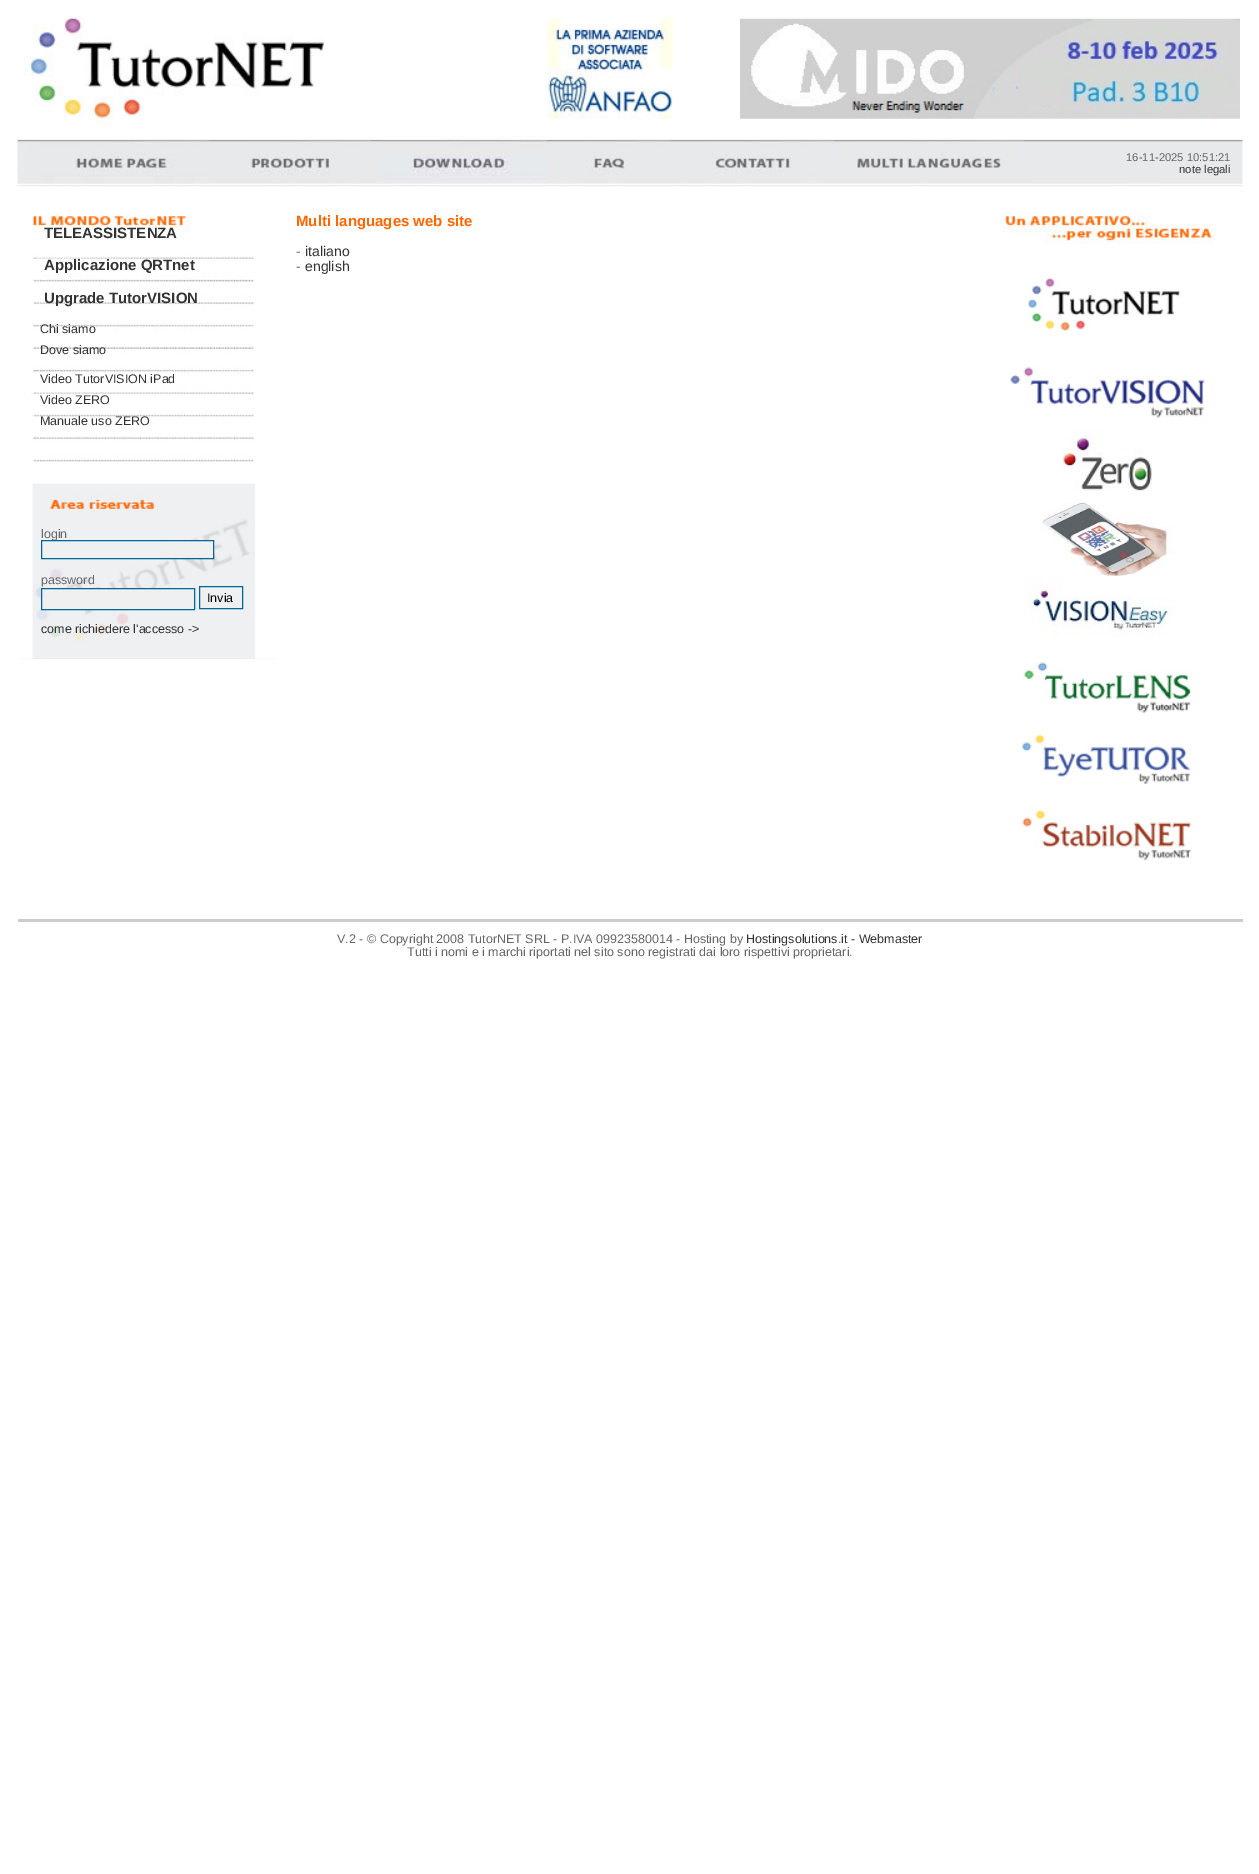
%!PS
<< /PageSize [1259 1874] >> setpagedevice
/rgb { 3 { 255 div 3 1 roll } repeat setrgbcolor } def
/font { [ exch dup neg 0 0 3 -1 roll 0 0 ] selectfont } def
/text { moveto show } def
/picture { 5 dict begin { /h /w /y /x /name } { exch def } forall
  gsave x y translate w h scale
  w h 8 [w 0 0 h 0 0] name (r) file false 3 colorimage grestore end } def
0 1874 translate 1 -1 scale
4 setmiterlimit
255 255 255 rgb
0 0 1259 1874 rectfill
(img_01.rgb) 24 16 300 110 picture
(img_02.rgb) 547 18 126 101 picture
(img_03.rgb) 740 18 500 101 picture
(img_04.rgb) 17 139 1226 48 picture
(img_05.rgb) 38 140 171 46 picture
(img_06.rgb) 249 140 123 35 picture
(img_07.rgb) 382 136 165 45 picture
(img_08.rgb) 586 140 85 35 picture
(img_09.rgb) 711 140 123 35 picture
(img_10.rgb) 857 140 167 28 picture
(img_11.rgb) 31 214 223 248 picture
(img_12.rgb) 20 483 256 176 picture
240 240 240 rgb
166 541 47 17 rectfill
42 589 113 20 rectfill
0 102 153 rgb
41.5 588.5 153 21 rectstroke
199.5 586.5 43 22 rectstroke
(img_13.rgb) 1004 214 210 30 picture
(img_14.rgb) 1028 278 153 54 picture
(img_15.rgb) 1010 367 195 51 picture
(img_16.rgb) 1062 429 92 62 picture
(img_17.rgb) 1042 502 132 75 picture
(img_18.rgb) 1024 576 151 61 picture
(img_19.rgb) 1023 662 168 51 picture
(img_20.rgb) 1022 734 169 50 picture
(img_21.rgb) 1022 809 170 52 picture
204 204 204 rgb
18 919 1225 3 rectfill
/LiberationSans-Regular 11.25 font
102 102 102 rgb
(16-11-2025 10:51:21) 1126 161 text
51 51 51 rgb
(note legali) 1179 173 text
/LiberationSans-Bold 15 font
(TELEASSISTENZA) 44 238 text
(Applicazione QRTnet) 44 270 text
(Upgrade TutorVISION) 44 303 text
/LiberationSans-Regular 12.5 font
(Chi siamo) 40 333 text
(Dove siamo) 40 354 text
(Video TutorVISION iPad) 40 383 text
(Video ZERO) 40 404 text
(Manuale uso ZERO) 40 425 text
102 102 102 rgb
(login) 41 538 text
0 102 153 rgb
41.5 540.5 172 18 rectstroke
102 102 102 rgb
(password) 41 584 text
0 0 0 rgb
(Invia) 207 602 text
51 51 51 rgb
(come richiedere l'accesso ->) 41 633 text
/LiberationSans-Bold 15 font
255 102 0 rgb
(Multi languages web site) 296 226 text
/LiberationSans-Regular 14 font
102 102 102 rgb
(-) 296 256 text
51 51 51 rgb
(italiano) 305 256 text
102 102 102 rgb
(-) 296 271 text
51 51 51 rgb
(english) 305 271 text
/LiberationSans-Regular 12.5 font
102 102 102 rgb
(V.2 - © Copyright 2008 TutorNET SRL - P.IVA 09923580014 - Hosting by) 337 943 text
51 51 51 rgb
(Hostingsolutions.it - Webmaster) 746 943 text
102 102 102 rgb
(Tutti i nomi e i marchi riportati nel sito sono registrati dai loro rispettivi proprietari.) 407 956 text
showpage
